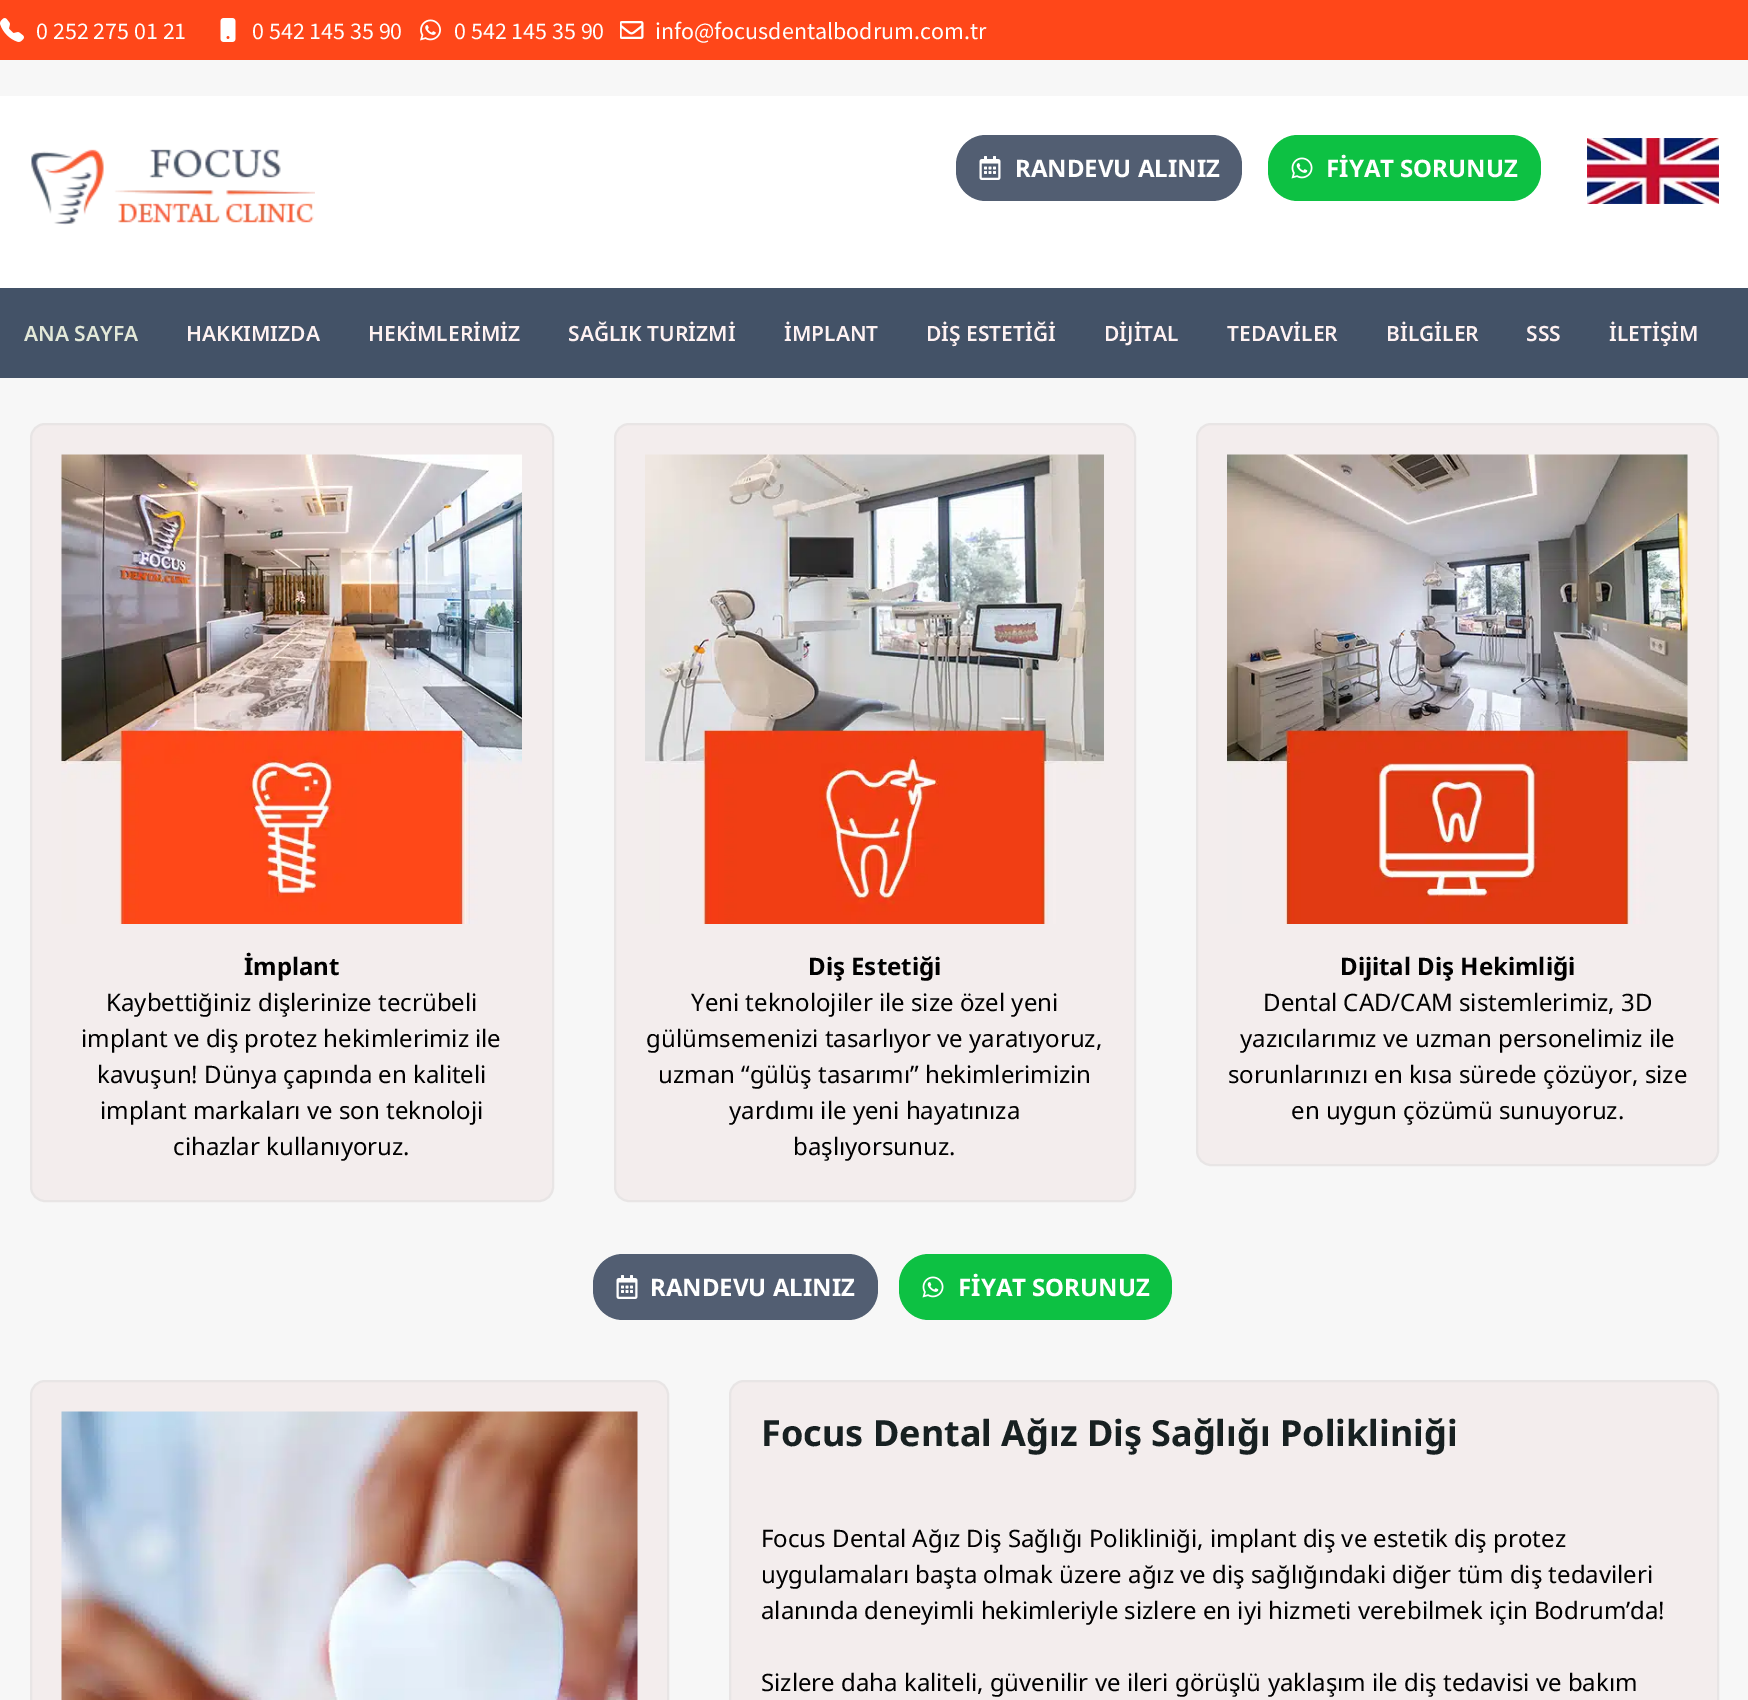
%!PS
<< /PageSize [1748 1700] >> setpagedevice
/rgb { 3 { 255 div 3 1 roll } repeat setrgbcolor } def
/font { [ exch dup neg 0 0 3 -1 roll 0 0 ] selectfont } def
/text { moveto show } def
/roundrect { 5 dict begin { /r /h /w /y /x } { exch def } forall
  x r add y moveto x w add y 2 copy h add r arct x w add y h add x 1 index r arct
  x y h add x y r arct x y 2 copy exch w add exch r arct closepath end } def
/picture { 5 dict begin { /h /w /y /x /name } { exch def } forall
  gsave x y translate w h scale
  w h 8 [w 0 0 h 0 0] name (r) file false 3 colorimage grestore end } def
0 1700 translate 1 -1 scale
4 setmiterlimit
247 247 247 rgb
0 0 1748 1700 rectfill
255 71 25 rgb
0 0 1748 60 rectfill
(img_01.rgb) 0 18 24 24 picture
(img_02.rgb) 220 18 16 24 picture
(img_03.rgb) 420 19 21 22 picture
(img_04.rgb) 620 21 24 18 picture
255 255 255 rgb
0 96 1748 192 rectfill
(img_05.rgb) 31 149 284 76 picture
82 94 114 rgb
956 135 286 66 30 roundrect fill
(img_06.rgb) 979 156 22 24 picture
13 193 67 rgb
1268 135 273 66 30 roundrect fill
(img_07.rgb) 1291 157 22 22 picture
(img_08.rgb) 1587 138 132 66 picture
67 82 103 rgb
0 288 1748 90 rectfill
243 237 237 rgb
31 424 522 777 14 roundrect gsave fill grestore
232 229 229 rgb
2 setlinewidth
stroke
(img_09.rgb) 61 454 461 470 picture
243 237 237 rgb
615 424 520 777 14 roundrect gsave fill grestore
232 229 229 rgb
stroke
(img_10.rgb) 645 454 459 470 picture
243 237 237 rgb
1197 424 521 741 14 roundrect gsave fill grestore
232 229 229 rgb
stroke
(img_11.rgb) 1227 454 461 470 picture
82 94 114 rgb
593 1254 285 66 30 roundrect fill
(img_06.rgb) 616 1275 22 24 picture
13 193 67 rgb
899 1254 273 66 30 roundrect fill
(img_07.rgb) 922 1276 22 22 picture
243 237 237 rgb
31 1381 637 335 14 roundrect gsave fill grestore
232 229 229 rgb
stroke
(img_12.rgb) 61 1411 577 289 picture
243 237 237 rgb
730 1381 988 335 14 roundrect gsave fill grestore
232 229 229 rgb
stroke
/SourceSansPro-Regular 24 font
255 255 255 rgb
(0 252 275 01 21) 36 39 text
(0 542 145 35 90) 252 39 text
(0 542 145 35 90) 454 39 text
(info@focusdentalbodrum.com.tr) 655 39 text
/NotoSans-Bold 24 font
(RANDEVU ALINIZ) 1015 177 text
(FİYAT SORUNUZ) 1326 177 text
/NotoSans-SemiBold 21 font
226 232 216 rgb
(ANA SAYFA) 24 341 text
255 242 242 rgb
(HAKKIMIZDA) 186 341 text
(HEKİMLERİMİZ) 368 341 text
(SAĞLIK TURİZMİ) 568 341 text
(İMPLANT) 784 341 text
(DİŞ ESTETİĞİ) 926 341 text
(DİJİTAL) 1104 341 text
(TEDAVİLER) 1227 341 text
(BİLGİLER) 1386 341 text
(SSS) 1526 341 text
(İLETİŞİM) 1609 341 text
/NotoSans-Bold 24 font
0 0 0 rgb
(İmplant) 244 975 text
/NotoSans-Regular 24 font
(Kaybettiğiniz dişlerinize tecrübeli) 106 1011 text
(implant ve diş protez hekimlerimiz ile) 81 1047 text
(kavuşun! Dünya çapında en kaliteli) 97 1083 text
(implant markaları ve son teknoloji) 100 1119 text
(cihazlar kullanıyoruz.) 173 1155 text
/NotoSans-Bold 24 font
(Diş Estetiği) 808 975 text
/NotoSans-Regular 24 font
(Yeni teknolojiler ile size özel yeni) 691 1011 text
(gülümsemenizi tasarlıyor ve yaratıyoruz,) 646 1047 text
(uzman “gülüş tasarımı” hekimlerimizin) 658 1083 text
(yardımı ile yeni hayatınıza) 729 1119 text
(başlıyorsunuz.) 793 1155 text
/NotoSans-Bold 24 font
(Dijital Diş Hekimliği) 1340 975 text
/NotoSans-Regular 24 font
(Dental CAD/CAM sistemlerimiz, 3D) 1263 1011 text
(yazıcılarımız ve uzman personelimiz ile) 1240 1047 text
(sorunlarınızı en kısa sürede çözüyor, size) 1228 1083 text
(en uygun çözümü sunuyoruz.) 1291 1119 text
/NotoSans-Bold 24 font
255 255 255 rgb
(RANDEVU ALINIZ) 650 1296 text
(FİYAT SORUNUZ) 958 1296 text
/NotoSans-Bold 36 font
23 32 33 rgb
(Focus Dental Ağız Diş Sağlığı Polikliniği) 761 1446 text
/NotoSans-Regular 24 font
0 0 0 rgb
(Focus Dental Ağız Diş Sağlığı Polikliniği, implant diş ve estetik diş protez) 761 1547 text
(uygulamaları başta olmak üzere ağız ve diş sağlığındaki diğer tüm diş tedavileri) 761 1583 text
(alanında deneyimli hekimleriyle sizlere en iyi hizmeti verebilmek için Bodrum’da!) 761 1619 text
(Sizlere daha kaliteli, güvenilir ve ileri görüşlü yaklaşım ile diş tedavisi ve bakım) 761 1691 text
showpage
